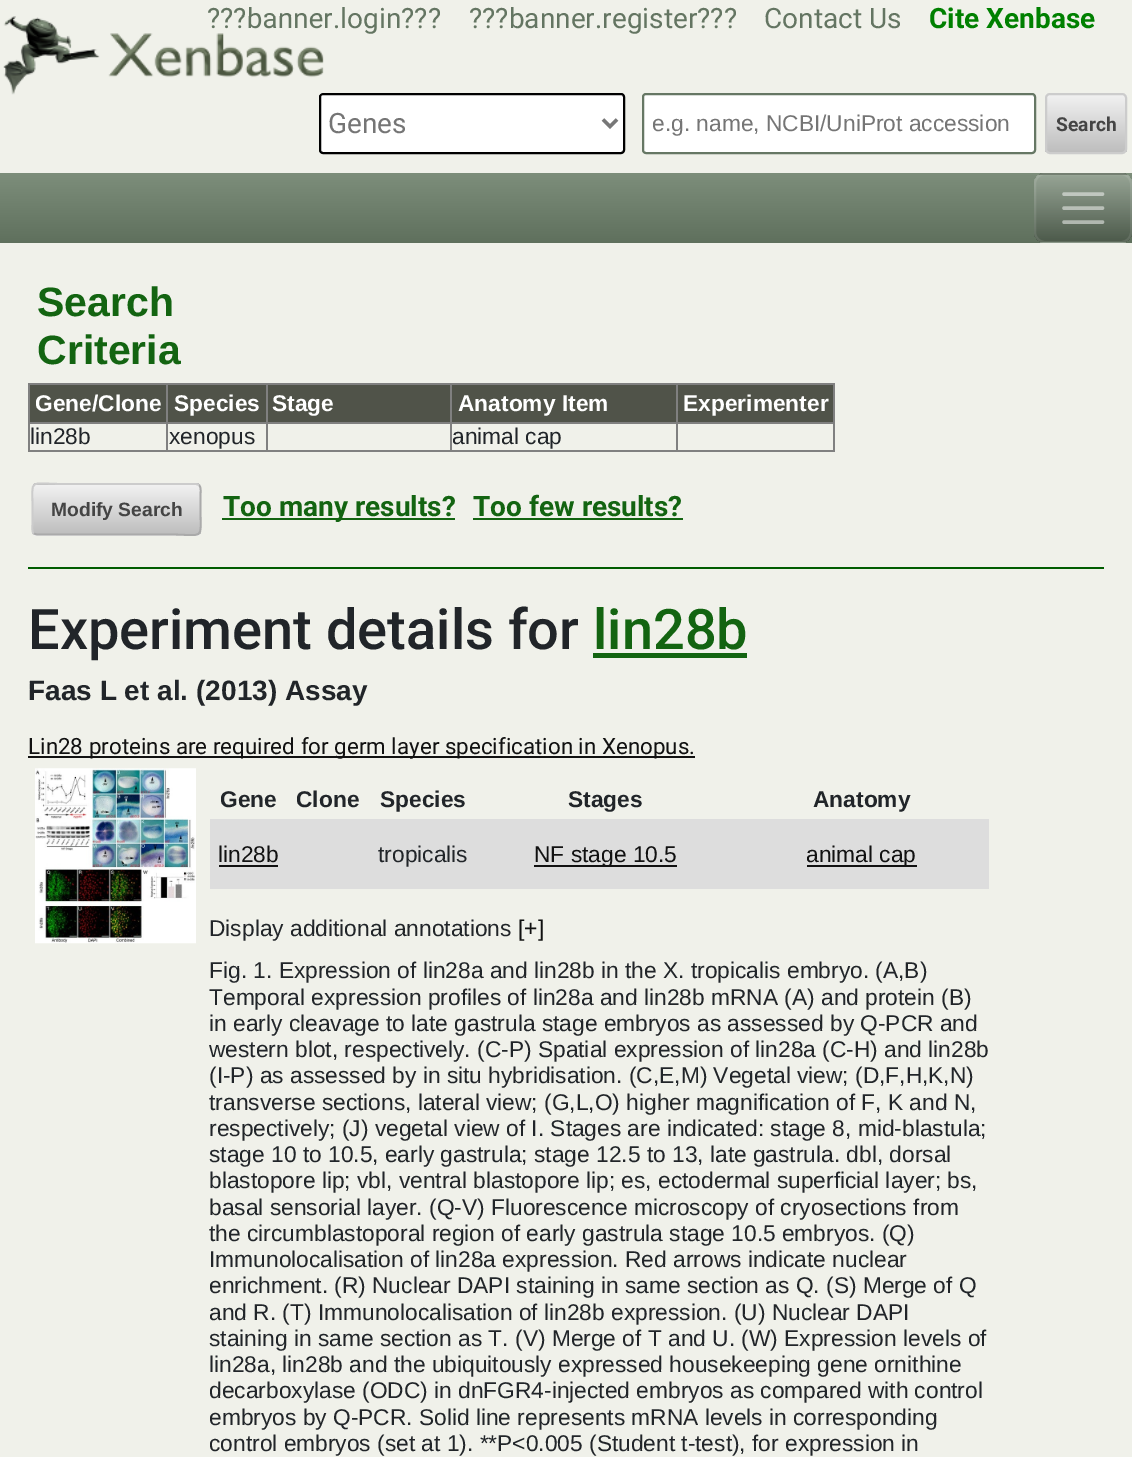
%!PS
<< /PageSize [1132 1457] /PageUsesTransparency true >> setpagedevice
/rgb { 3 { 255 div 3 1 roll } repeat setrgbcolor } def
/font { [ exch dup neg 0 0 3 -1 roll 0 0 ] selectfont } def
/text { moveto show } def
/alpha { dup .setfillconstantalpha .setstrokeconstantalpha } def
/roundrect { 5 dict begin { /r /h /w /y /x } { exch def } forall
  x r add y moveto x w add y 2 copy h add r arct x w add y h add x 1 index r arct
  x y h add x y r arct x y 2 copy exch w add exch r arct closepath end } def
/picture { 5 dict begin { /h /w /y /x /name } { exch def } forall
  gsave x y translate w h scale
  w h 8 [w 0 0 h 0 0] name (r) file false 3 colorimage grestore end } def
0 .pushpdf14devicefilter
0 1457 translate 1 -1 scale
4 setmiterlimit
240 241 234 rgb
0 0 1132 1457 rectfill
255 255 255 rgb
320 94 304 59 3 roundrect gsave fill grestore
0 0 0 rgb
2 setlinewidth
stroke
119 119 119 rgb
3.5 setlinewidth
603 119.5 moveto 7 7 rlineto 7 -7 rlineto stroke
255 255 255 rgb
643 94 392 59 3 roundrect gsave fill grestore
102 119 100 rgb
2 setlinewidth
stroke
gsave
1045 93 82 61 5 roundrect clip newpath
gsave 1045 95 moveto 82 0 rlineto 0 57 rlineto -82 0 rlineto closepath clip newpath
<< /ShadingType 2 /ColorSpace /DeviceRGB /Coords [1086 95 1086 152] /Extend [true true] /Function << /FunctionType 2 /Domain [0 1] /C0 [0.945 0.945 0.945] /C1 [0.745 0.745 0.745] /N 1 >> >> shfill grestore
grestore
204 204 204 rgb
1046 94 80 59 4 roundrect stroke
gsave 0 173 moveto 1132 0 rlineto 0 70 rlineto -1132 0 rlineto closepath clip newpath
<< /ShadingType 2 /ColorSpace /DeviceRGB /Coords [566 173 566 243] /Extend [true true] /Function << /FunctionType 2 /Domain [0 1] /C0 [0.49 0.557 0.482] /C1 [0.373 0.439 0.365] /N 1 >> >> shfill grestore
gsave
1034 173 98 70 11 roundrect clip newpath
gsave 1034 173 moveto 98 0 rlineto 0 2 rlineto -98 0 rlineto closepath clip newpath
<< /ShadingType 2 /ColorSpace /DeviceRGB /Coords [1083 109 1083 175] /Extend [true true] /Function << /FunctionType 2 /Domain [0 1] /C0 [0.592 0.643 0.584] /C1 [0.392 0.443 0.384] /N 1 >> >> shfill grestore
0.2 alpha
gsave 1034 175 moveto 98 0 rlineto 0 67 rlineto -98 0 rlineto closepath clip newpath
<< /ShadingType 2 /ColorSpace /DeviceRGB /Coords [1083 175 1083 242] /Extend [true true] /Function << /FunctionType 2 /Domain [0 1] /C0 [1 1 1] /C1 [0 0 0] /N 1 >> >> shfill grestore
1 alpha
gsave 1034 242 moveto 98 0 rlineto 0 1 rlineto -98 0 rlineto closepath clip newpath
<< /ShadingType 2 /ColorSpace /DeviceRGB /Coords [1083 242 1083 308] /Extend [true true] /Function << /FunctionType 2 /Domain [0 1] /C0 [0.498 0.553 0.49] /C1 [0.298 0.353 0.29] /N 1 >> >> shfill grestore
grestore
0.1 alpha
255 255 255 rgb
1035 174 96 68 10 roundrect stroke
0.5 alpha
3.5 setlinewidth
1 setlinecap
1064 194 moveto 38.5 0 rlineto 1064 208 moveto 38.5 0 rlineto 1064 222 moveto 38.5 0 rlineto stroke
1 alpha
128 128 128 rgb
28 383 807 2 rectfill
833 383 2 69 rectfill
28 450 807 2 rectfill
28 383 2 69 rectfill
80 83 73 rgb
30 385 136 37 rectfill
168 385 98 37 rectfill
128 128 128 rgb
676 422 159 2 rectfill
676 422 2 30 rectfill
450 422 227 2 rectfill
450 422 2 30 rectfill
266 422 186 2 rectfill
266 422 2 30 rectfill
166 422 102 2 rectfill
166 422 2 30 rectfill
28 422 140 2 rectfill
166 383 2 41 rectfill
80 83 73 rgb
268 385 182 37 rectfill
128 128 128 rgb
266 383 2 41 rectfill
80 83 73 rgb
452 385 224 37 rectfill
128 128 128 rgb
450 383 2 41 rectfill
80 83 73 rgb
678 385 155 37 rectfill
128 128 128 rgb
676 383 2 41 rectfill
gsave
32 483 169 53 5 roundrect clip newpath
gsave 32 483 moveto 169 0 rlineto 0 2 rlineto -169 0 rlineto closepath clip newpath
<< /ShadingType 2 /ColorSpace /DeviceRGB /Coords [116 436 116 485] /Extend [true true] /Function << /FunctionType 2 /Domain [0 1] /C0 [0.945 0.945 0.945] /C1 [0.745 0.745 0.745] /N 1 >> >> shfill grestore
gsave 32 485 moveto 169 0 rlineto 0 49 rlineto -169 0 rlineto closepath clip newpath
<< /ShadingType 2 /ColorSpace /DeviceRGB /Coords [116 485 116 534] /Extend [true true] /Function << /FunctionType 2 /Domain [0 1] /C0 [0.945 0.945 0.945] /C1 [0.745 0.745 0.745] /N 1 >> >> shfill grestore
gsave 32 534 moveto 169 0 rlineto 0 2 rlineto -169 0 rlineto closepath clip newpath
<< /ShadingType 2 /ColorSpace /DeviceRGB /Coords [116 534 116 583] /Extend [true true] /Function << /FunctionType 2 /Domain [0 1] /C0 [0.945 0.945 0.945] /C1 [0.745 0.745 0.745] /N 1 >> >> shfill grestore
grestore
170 170 170 rgb
1.8 setlinewidth
0 setlinecap
199 485 moveto 2.5 2.5 1.5 8 1.5 10 rcurveto 0 14 rlineto 0 32.5 5 25.5 -31 25.5 rcurveto -132.5 0 rlineto -3.5 -1 rlineto stroke
204 204 204 rgb
33.5 533.5 moveto -2 -2.5 -1 -8 -1 -10.5 rcurveto 0 -14 rlineto 0 -32 -5 -25 31 -25 rcurveto 132.5 0 rlineto 3 1 rlineto stroke
19 100 17 rgb
222 518 233 2 rectfill
473 518 210 2 rectfill
0 92 0 rgb
28 567 1076 2 rectfill
19 100 17 rgb
593 653 154 5 rectfill
17 17 17 rgb
28 756 667 2 rectfill
(img_02.rgb) 35 768 161 176 picture
221 221 221 rgb
210 819 779 70 rectfill
17 17 17 rgb
219 865 59 2 rectfill
534 865 143 2 rectfill
807 865 110 2 rectfill
/Roboto-Regular 28 font
100 117 98 rgb
(???banner.login???) 207 28 text
(img_01.rgb) 3 16 321 79 picture
(???banner.register???) 469 28 text
(Contact Us) 764 28 text
/Roboto-Bold 28 font
0 128 0 rgb
(Cite Xenbase) 929 28 text
/Roboto-Regular 28 font
117 117 117 rgb
(Genes) 328 133 text
/LiberationSans-Regular 22.75 font
(e.g. name, NCBI/UniProt accession) 652 131 text
/Roboto-Bold 19.25 font
68 68 68 rgb
(Search) 1056 131 text
/LiberationSans-Bold 41 font
19 100 17 rgb
(Search) 37 316 text
(Criteria) 37 364 text
/LiberationSans-Bold 22.75 font
255 255 255 rgb
(Gene/Clone) 35 411 text
(Species) 174 411 text
(Stage) 272 411 text
(Anatomy Item) 458 411 text
(Experimenter) 683 411 text
/LiberationSans-Regular 22.75 font
33 37 41 rgb
(lin28b) 30 444 text
(xenopus) 169 444 text
(animal cap) 452 444 text
/LiberationSans-Bold 19.25 font
68 68 68 rgb
(Modify Search) 51 516 text
/Roboto-Bold 28 font
19 100 17 rgb
(Too many results?) 223 516 text
(Too few results?) 473 516 text
/Roboto-Medium 56 font
33 37 41 rgb
(Experiment details for) 28 649 text
19 100 17 rgb
(lin28b) 593 649 text
/LiberationSans-Bold 28 font
33 37 41 rgb
(Faas L et al. \(2013\) Assay) 28 700 text
/Roboto-Regular 22.4 font
17 17 17 rgb
(Lin28 proteins are required for germ layer specification in Xenopus.) 28 754 text
/LiberationSans-Bold 22.75 font
33 37 41 rgb
(Gene) 220 807 text
(Clone) 296 807 text
(Species) 380 807 text
(Stages) 568 807 text
(Anatomy) 813 807 text
/LiberationSans-Regular 22.75 font
17 17 17 rgb
(lin28b) 218 862 text
33 37 41 rgb
(tropicalis) 378 862 text
17 17 17 rgb
(NF stage 10.5) 534 862 text
(animal cap) 806 862 text
33 37 41 rgb
(Display additional annotations) 209 936 text
17 17 17 rgb
([+]) 518 936 text
33 37 41 rgb
(Fig. 1. Expression of lin28a and lin28b in the X. tropicalis embryo. \(A,B\)) 209 978 text
(Temporal expression profiles of lin28a and lin28b mRNA \(A\) and protein \(B\)) 209 1005 text
(in early cleavage to late gastrula stage embryos as assessed by Q-PCR and) 209 1031 text
(western blot, respectively. \(C-P\) Spatial expression of lin28a \(C-H\) and lin28b) 209 1057 text
(\(I-P\) as assessed by in situ hybridisation. \(C,E,M\) Vegetal view; \(D,F,H,K,N\)) 209 1083 text
(transverse sections, lateral view; \(G,L,O\) higher magnification of F, K and N,) 209 1110 text
(respectively; \(J\) vegetal view of I. Stages are indicated: stage 8, mid-blastula;) 209 1136 text
(stage 10 to 10.5, early gastrula; stage 12.5 to 13, late gastrula. dbl, dorsal) 209 1162 text
(blastopore lip; vbl, ventral blastopore lip; es, ectodermal superficial layer; bs,) 209 1188 text
(basal sensorial layer. \(Q-V\) Fluorescence microscopy of cryosections from) 209 1215 text
(the circumblastoporal region of early gastrula stage 10.5 embryos. \(Q\)) 209 1241 text
(Immunolocalisation of lin28a expression. Red arrows indicate nuclear) 209 1267 text
(enrichment. \(R\) Nuclear DAPI staining in same section as Q. \(S\) Merge of Q) 209 1293 text
(and R. \(T\) Immunolocalisation of lin28b expression. \(U\) Nuclear DAPI) 209 1320 text
(staining in same section as T. \(V\) Merge of T and U. \(W\) Expression levels of) 209 1346 text
(lin28a, lin28b and the ubiquitously expressed housekeeping gene ornithine) 209 1372 text
(decarboxylase \(ODC\) in dnFGR4-injected embryos as compared with control) 209 1398 text
(embryos by Q-PCR. Solid line represents mRNA levels in corresponding) 209 1425 text
(control embryos \(set at 1\). **P<0.005 \(Student t-test\), for expression in) 209 1451 text
.poppdf14devicefilter showpage
